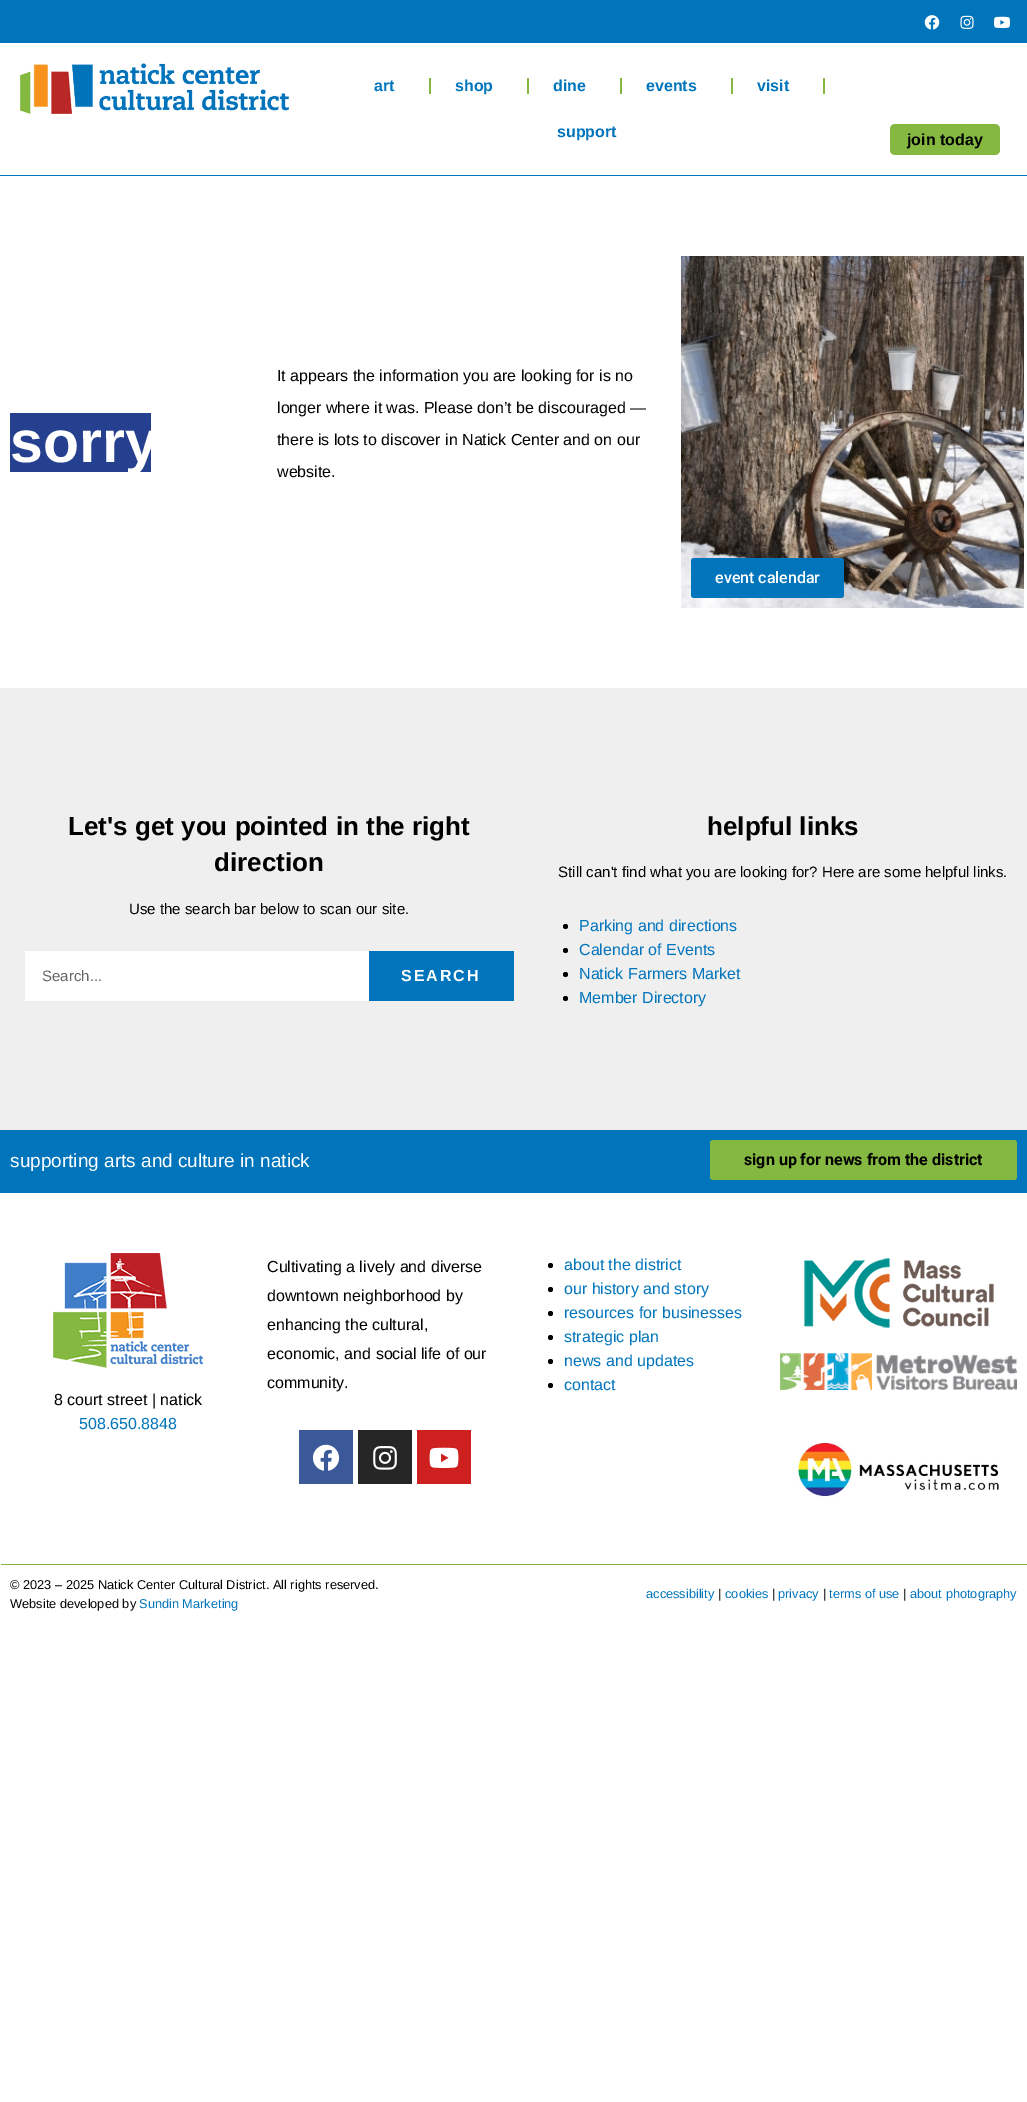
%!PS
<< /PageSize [1027 2102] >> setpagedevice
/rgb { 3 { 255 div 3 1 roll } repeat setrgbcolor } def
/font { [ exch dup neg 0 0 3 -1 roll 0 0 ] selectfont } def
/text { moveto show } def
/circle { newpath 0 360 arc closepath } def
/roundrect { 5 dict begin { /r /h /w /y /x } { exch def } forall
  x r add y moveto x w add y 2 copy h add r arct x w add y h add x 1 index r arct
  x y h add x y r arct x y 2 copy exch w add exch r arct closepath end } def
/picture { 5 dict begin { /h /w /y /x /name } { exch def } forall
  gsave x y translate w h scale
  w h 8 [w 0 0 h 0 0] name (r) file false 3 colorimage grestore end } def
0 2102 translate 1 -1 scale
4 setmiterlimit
255 255 255 rgb
0 0 1027 2102 rectfill
0 117 188 rgb
0 0 1027 43 rectfill
(img_01.rgb) 924 15 16 15 picture
(img_02.rgb) 960 15 14 14 picture
(img_03.rgb) 994 16 16 12 picture
0 175 1027 1 rectfill
(img_04.rgb) 20 63 269 51 picture
133 184 65 rgb
429 78 2 16 rectfill
527 78 2 16 rectfill
620 78 2 16 rectfill
731 78 2 16 rectfill
823 78 2 16 rectfill
890 124 110 31 5 roundrect fill
37 64 143 rgb
10 413 141 59 rectfill
(img_05.rgb) 681 256 343 352 picture
0 117 188 rgb
691 558 153 40 3 roundrect fill
239 239 239 rgb
0 688 1027 442 rectfill
255 255 255 rgb
25 951 344 50 rectfill
0 117 188 rgb
369 951 145 50 rectfill
0 0 0 rgb
565.5 926.5 2.5 circle fill
565.5 950.5 2.5 circle fill
565.5 974.5 2.5 circle fill
565.5 998.5 2.5 circle fill
0 117 188 rgb
0 1130 1027 63 rectfill
133 184 65 rgb
710 1140 307 40 3 roundrect fill
59 89 152 rgb
299 1430 54 54 rectfill
(img_06.rgb) 312 1444 28 27 picture
38 38 38 rgb
358 1430 54 54 rectfill
(img_07.rgb) 373 1446 24 24 picture
205 32 31 rgb
417 1430 54 54 rectfill
(img_08.rgb) 429 1447 30 21 picture
0 0 0 rgb
550.5 1265.5 2.5 circle fill
550.5 1289.5 2.5 circle fill
550.5 1313.5 2.5 circle fill
550.5 1337.5 2.5 circle fill
550.5 1361.5 2.5 circle fill
550.5 1385.5 2.5 circle fill
(img_09.rgb) 804 1258 190 70 picture
(img_10.rgb) 780 1353 237 37 picture
(img_11.rgb) 797 1442 202 57 picture
(img_12.rgb) 53 1253 150 115 picture
133 184 65 rgb
1 1564 1026 1 rectfill
/LiberationSans-Bold 16 font
0 117 188 rgb
(art) 374 91 text
(shop) 455 91 text
(dine) 553 91 text
(events) 646 91 text
(visit) 757 91 text
(support) 557 137 text
0 0 0 rgb
(join today) 907 145 text
/LiberationSans-Bold 59 font
255 255 255 rgb
(sorry) 10 462 text
/LiberationSans-Regular 16 font
0 0 0 rgb
(It appears the information you are looking for is no) 277 381 text
(longer where it was. Please don’t be discouraged —) 277 413 text
(there is lots to discover in Natick Center and on our) 277 445 text
(website.) 277 477 text
/Roboto-Medium 16 font
255 255 255 rgb
(event calendar) 715 583 text
/LiberationSans-Bold 26 font
0 0 0 rgb
(Let's get you pointed in the right) 68 835 text
(direction) 214 871 text
/LiberationSans-Regular 15 font
(Use the search bar below to scan our site.) 129 914 text
102 102 102 rgb
(Search...) 42 981 text
/LiberationSans-Bold 16 font
255 255 255 rgb
401 981 moveto 2 0 (SEARCH) ashow
/LiberationSans-Bold 26 font
0 0 0 rgb
(helpful links) 707 835 text
/LiberationSans-Regular 15 font
(Still can't find what you are looking for? Here are some helpful links.) 558 877 text
/LiberationSans-Regular 16 font
0 117 188 rgb
(Parking and directions) 579 931 text
(Calendar of Events) 579 955 text
(Natick Farmers Market) 579 979 text
(Member Directory) 579 1003 text
/LiberationSans-Regular 19 font
255 255 255 rgb
(supporting arts and culture in natick) 10 1167 text
/Roboto-Bold 16 font
0 0 0 rgb
(sign up for news from the district) 744 1165 text
/LiberationSans-Regular 16 font
(Cultivating a lively and diverse) 267 1272 text
(downtown neighborhood by) 267 1301 text
(enhancing the cultural,) 267 1330 text
(economic, and social life of our) 267 1359 text
(community.) 267 1388 text
0 117 188 rgb
(about the district) 564 1270 text
(our history and story) 564 1294 text
(resources for businesses) 564 1318 text
(strategic plan) 564 1342 text
(news and updates) 564 1366 text
(contact) 564 1390 text
0 0 0 rgb
(8 court street | natick) 54 1405 text
0 117 188 rgb
(508.650.8848) 79 1429 text
/LiberationSans-Regular 12.8 font
0 0 0 rgb
(© 2023 – 2025 Natick Center Cultural District. All rights reserved.) 10 1589 text
(Website developed by) 10 1608 text
0 117 188 rgb
(Sundin Marketing) 139 1608 text
(accessibility) 646 1598 text
0 0 0 rgb
(|) 718 1598 text
0 117 188 rgb
(cookies) 725 1598 text
0 0 0 rgb
(|) 772 1598 text
0 117 188 rgb
(privacy) 778 1598 text
0 0 0 rgb
(|) 823 1598 text
0 117 188 rgb
(terms of use) 829 1598 text
0 0 0 rgb
(|) 903 1598 text
0 117 188 rgb
(about photography) 910 1598 text
showpage
